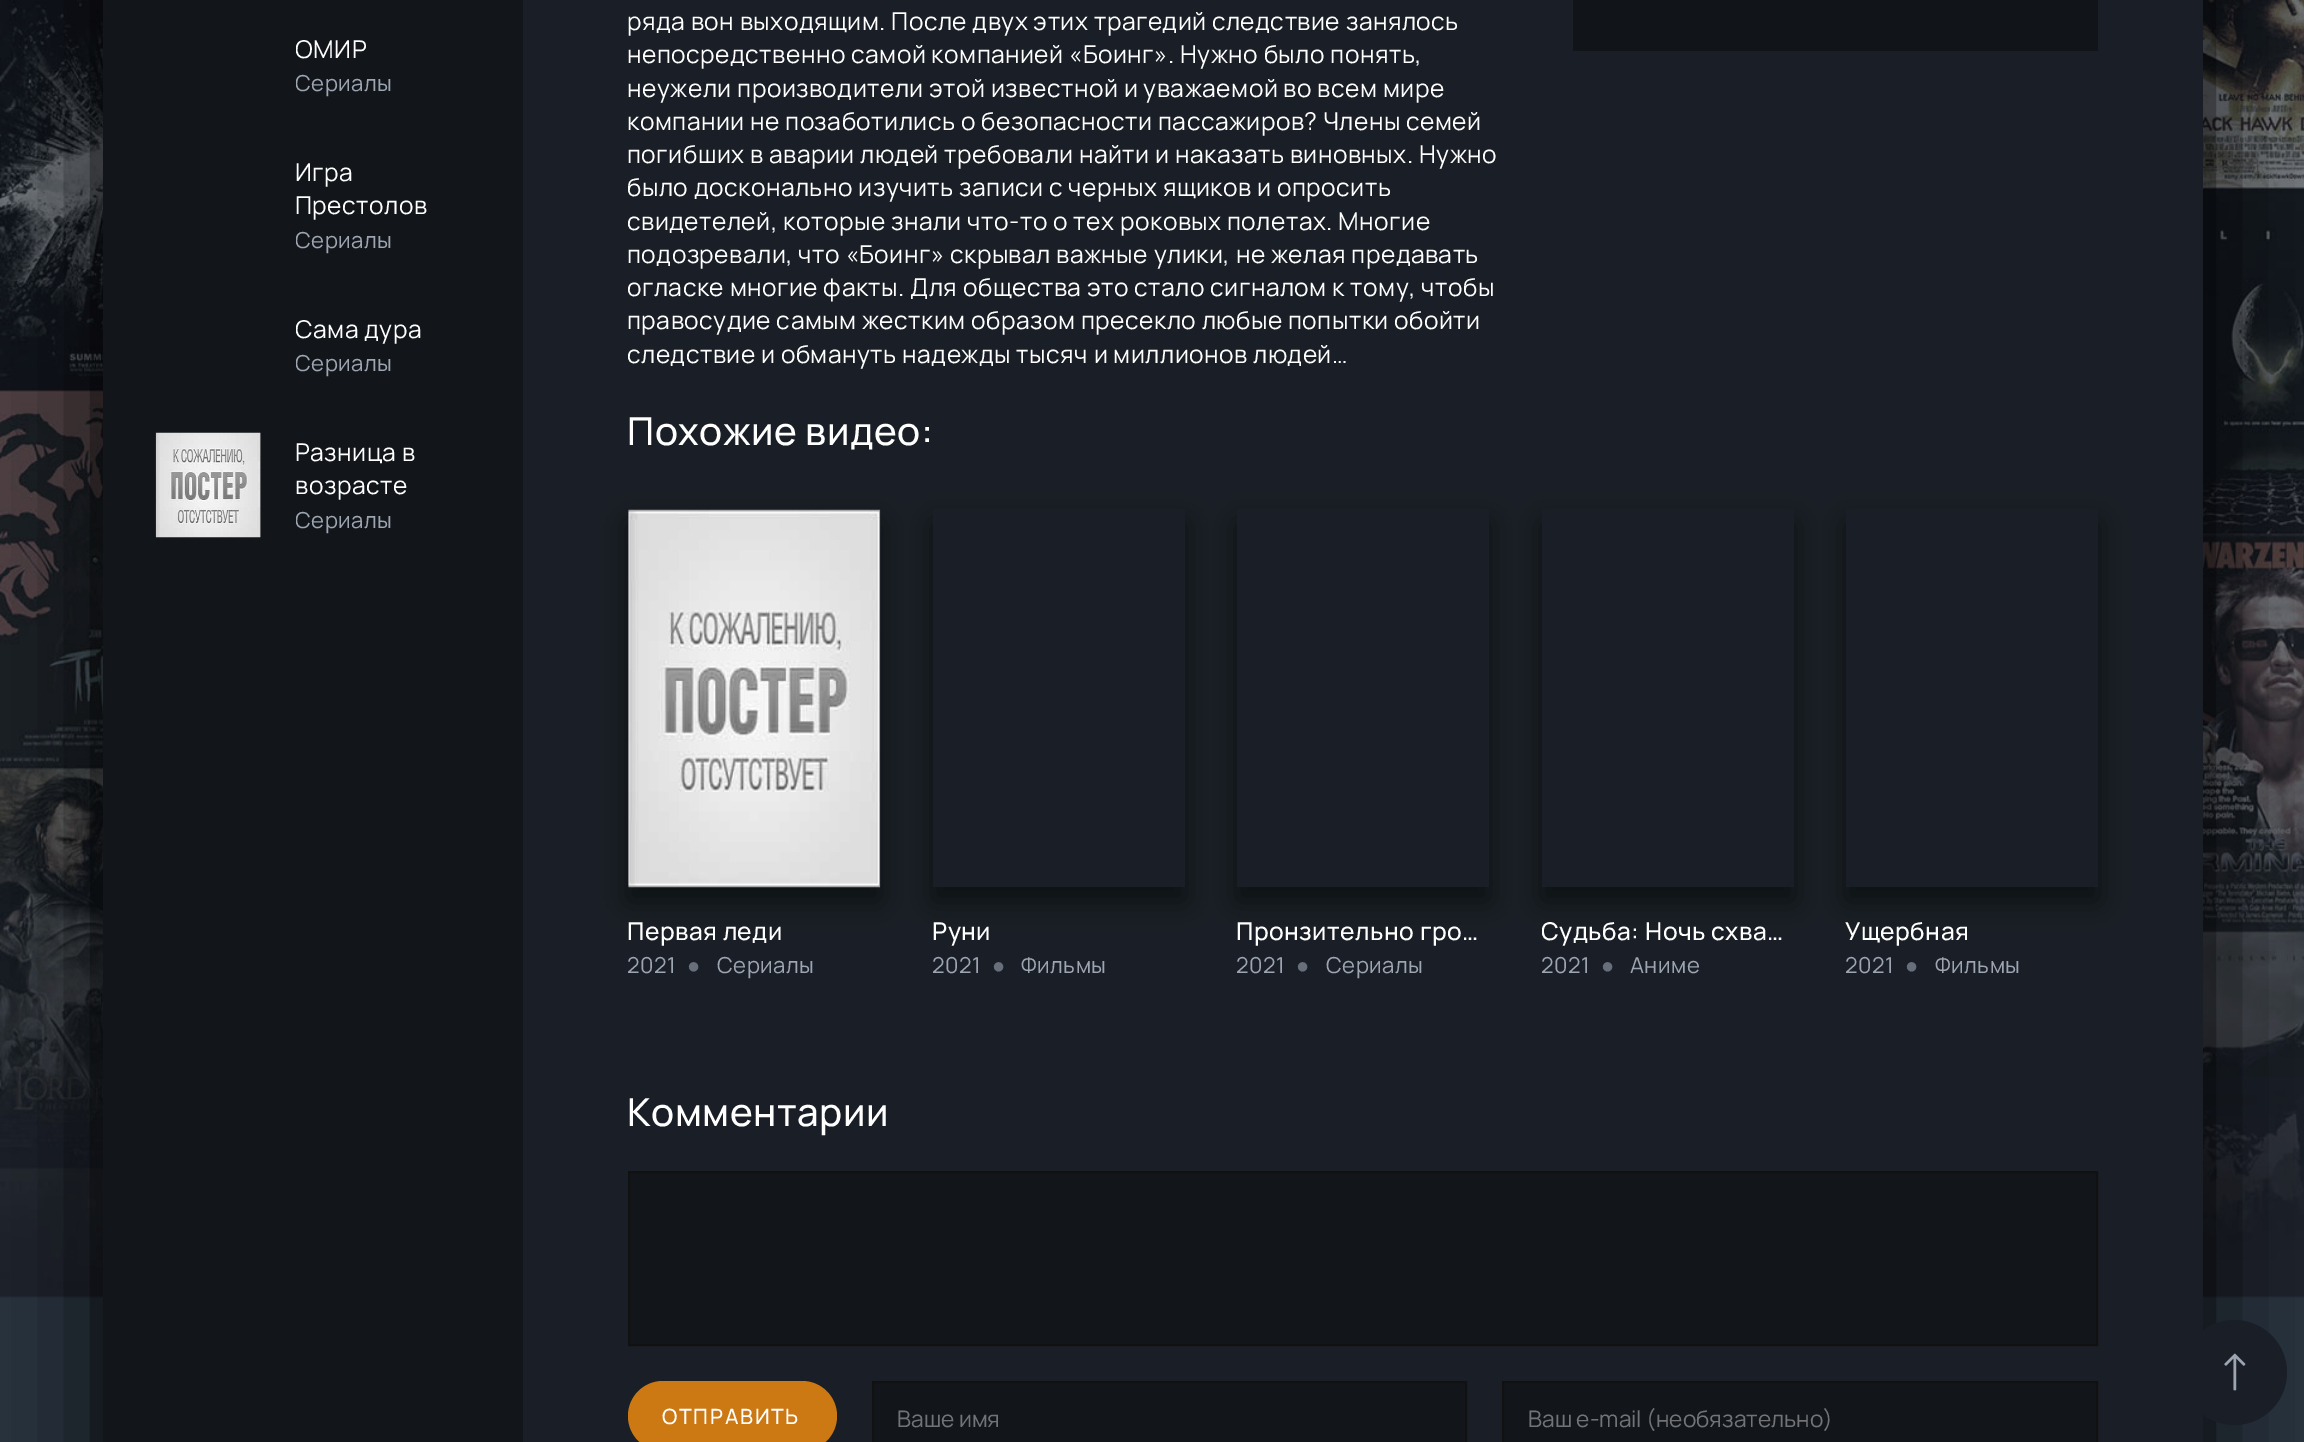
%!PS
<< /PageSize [2304 1442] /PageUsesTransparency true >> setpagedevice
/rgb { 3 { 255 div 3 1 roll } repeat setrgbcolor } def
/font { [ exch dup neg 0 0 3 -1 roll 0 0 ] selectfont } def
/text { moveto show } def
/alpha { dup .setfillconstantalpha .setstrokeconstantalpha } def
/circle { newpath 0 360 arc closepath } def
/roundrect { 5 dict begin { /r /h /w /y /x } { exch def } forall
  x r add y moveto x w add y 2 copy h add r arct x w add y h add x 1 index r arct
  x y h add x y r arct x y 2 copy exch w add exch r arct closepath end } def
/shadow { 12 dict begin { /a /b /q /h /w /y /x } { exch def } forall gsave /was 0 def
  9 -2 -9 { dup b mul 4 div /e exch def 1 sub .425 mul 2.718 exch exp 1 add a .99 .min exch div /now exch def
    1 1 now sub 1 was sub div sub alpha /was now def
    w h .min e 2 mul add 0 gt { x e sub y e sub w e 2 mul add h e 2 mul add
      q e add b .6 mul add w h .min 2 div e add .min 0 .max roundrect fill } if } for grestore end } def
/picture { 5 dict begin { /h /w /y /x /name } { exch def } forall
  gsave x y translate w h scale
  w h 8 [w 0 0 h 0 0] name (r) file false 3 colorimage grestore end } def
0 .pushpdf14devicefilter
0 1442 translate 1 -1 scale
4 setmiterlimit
41 52 63 rgb
0 0 2304 1442 rectfill
(img_01.rgb) 0 0 2304 1298 picture
0 0 0 rgb
103 -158 2100 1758 0 52.5 1 shadow
26 31 39 rgb
523 0 1680 1442 rectfill
18 22 27 rgb
103 0 420 1442 rectfill
(img_02.rgb) 155 432 106 106 picture
17 21 26 rgb
1573 0 525 51 rectfill
0 0 0 rgb
628 523 252 378 0 14 0.5 shadow
(img_03.rgb) 628 509 253 379 picture
gsave
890 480 moveto 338 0 rlineto 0 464 rlineto -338 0 rlineto closepath 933 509 moveto 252 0 rlineto 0 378 rlineto -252 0 rlineto closepath eoclip newpath
933 523 252 378 0 14 0.5 shadow
grestore
gsave
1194 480 moveto 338 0 rlineto 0 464 rlineto -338 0 rlineto closepath 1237 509 moveto 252 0 rlineto 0 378 rlineto -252 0 rlineto closepath eoclip newpath
1237 523 252 378 0 14 0.5 shadow
grestore
gsave
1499 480 moveto 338 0 rlineto 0 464 rlineto -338 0 rlineto closepath 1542 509 moveto 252 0 rlineto 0 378 rlineto -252 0 rlineto closepath eoclip newpath
1542 523 252 378 0 14 0.5 shadow
grestore
gsave
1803 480 moveto 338 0 rlineto 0 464 rlineto -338 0 rlineto closepath 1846 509 moveto 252 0 rlineto 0 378 rlineto -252 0 rlineto closepath eoclip newpath
1846 523 252 378 0 14 0.5 shadow
grestore
18 22 27 rgb
629 1172 moveto 1468 0 rlineto 0 173 rlineto -1468 0 rlineto closepath gsave fill grestore
17 17 17 rgb
2 setlinewidth
stroke
204 121 20 rgb
628 1381 209 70 35 roundrect fill
18 22 27 rgb
873 1382 moveto 593 0 rlineto 0 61 rlineto -593 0 rlineto closepath gsave fill grestore
17 17 17 rgb
stroke
18 22 27 rgb
1503 1382 moveto 594 0 rlineto 0 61 rlineto -594 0 rlineto closepath gsave fill grestore
17 17 17 rgb
stroke
26 31 39 rgb
2234.5 1372.5 52.5 circle fill
(img_04.rgb) 2224 1353 22 38 picture
gsave
296 32 175 33 rectclip
/Manrope-ExtraLight 24.5 font
255 255 255 rgb
295 58 moveto 0.5 0 (ОМИР) ashow
grestore
gsave
296 65 175 33 rectclip
/Manrope-ExtraLight 22 font
157 165 177 rgb
295 91 moveto 0.5 0 (Сериалы) ashow
grestore
/Manrope-ExtraLight 24.5 font
255 255 255 rgb
295 181 moveto 0.5 0 (Игра) ashow
295 214 moveto 0.5 0 (Престолов) ashow
gsave
296 222 175 34 rectclip
/Manrope-ExtraLight 22 font
157 165 177 rgb
295 248 moveto 0.5 0 (Сериалы) ashow
grestore
gsave
296 312 175 33 rectclip
295 338 moveto 0.5 0 (Сама дура) ashow
grestore
gsave
296 345 175 33 rectclip
/Manrope-ExtraLight 22 font
157 165 177 rgb
295 371 moveto 0.5 0 (Сериалы) ashow
grestore
295 461 moveto 0.5 0 (Разница в) ashow
295 494 moveto 0.5 0 (возрасте) ashow
gsave
296 502 175 34 rectclip
/Manrope-ExtraLight 22 font
157 165 177 rgb
295 528 moveto 0.5 0 (Сериалы) ashow
grestore
627 30 moveto 0.5 0 (ряда вон выходящим. После двух этих трагедий следствие занялось) ashow
627 63 moveto 0.5 0 (непосредственно самой компанией «Боинг». Нужно было понять,) ashow
627 97 moveto 0.5 0 (неужели производители этой известной и уважаемой во всем мире) ashow
627 130 moveto 0.5 0 (компании не позаботились о безопасности пассажиров? Члены семей) ashow
627 163 moveto 0.5 0 (погибших в аварии людей требовали найти и наказать виновных. Нужно) ashow
627 196 moveto 0.5 0 (было досконально изучить записи с черных ящиков и опросить) ashow
627 230 moveto 0.5 0 (свидетелей, которые знали что-то о тех роковых полетах. Многие) ashow
627 263 moveto 0.5 0 (подозревали, что «Боинг» скрывал важные улики, не желая предавать) ashow
627 296 moveto 0.5 0 (огласке многие факты. Для общества это стало сигналом к тому, чтобы) ashow
627 329 moveto 0.5 0 (правосудие самым жестким образом пресекло любые попытки обойти) ashow
627 363 moveto 0.5 0 (следствие и обмануть надежды тысяч и миллионов людей…) ashow
/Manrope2-ExtraLight 38.5 font
627 445 moveto 0.5 0 (Похожие видео:) ashow
/Manrope2-ExtraLight 24.5 font
627 940 moveto 0.5 0 (Первая леди) ashow
/Manrope-ExtraLight 22 font
157 165 177 rgb
627 973 moveto 0.5 0 (2021) ashow
/LiberationSans-Regular 22 font
105 111 122 rgb
687 973 moveto 0.5 0 (●) ashow
/Manrope-ExtraLight 22 font
157 165 177 rgb
717 973 moveto 0.5 0 (Сериалы) ashow
/Manrope2-ExtraLight 24.5 font
255 255 255 rgb
932 940 moveto 0.5 0 (Руни) ashow
/Manrope-ExtraLight 22 font
157 165 177 rgb
932 973 moveto 0.5 0 (2021) ashow
/LiberationSans-Regular 22 font
105 111 122 rgb
992 973 moveto 0.5 0 (●) ashow
/Manrope-ExtraLight 22 font
157 165 177 rgb
1021 973 moveto 0.5 0 (Фильмы) ashow
/Manrope2-ExtraLight 24.5 font
255 255 255 rgb
1236 940 moveto 0.5 0 (Пронзительно гро…) ashow
/Manrope-ExtraLight 22 font
157 165 177 rgb
1236 973 moveto 0.5 0 (2021) ashow
/LiberationSans-Regular 22 font
105 111 122 rgb
1296 973 moveto 0.5 0 (●) ashow
/Manrope-ExtraLight 22 font
157 165 177 rgb
1326 973 moveto 0.5 0 (Сериалы) ashow
gsave
1542 914 252 33 rectclip
/Manrope2-ExtraLight 24.5 font
255 255 255 rgb
1541 940 moveto 0.5 0 (Судьба: Ночь схва…) ashow
grestore
1541 973 moveto 0.5 0 (2021) ashow
/LiberationSans-Regular 22 font
105 111 122 rgb
1601 973 moveto 0.5 0 (●) ashow
/Manrope-ExtraLight 22 font
157 165 177 rgb
1630 973 moveto 0.5 0 (Аниме) ashow
/Manrope2-ExtraLight 24.5 font
255 255 255 rgb
1845 940 moveto 0.5 0 (Ущербная) ashow
/Manrope-ExtraLight 22 font
157 165 177 rgb
1845 973 moveto 0.5 0 (2021) ashow
/LiberationSans-Regular 22 font
105 111 122 rgb
1905 973 moveto 0.5 0 (●) ashow
/Manrope-ExtraLight 22 font
157 165 177 rgb
1935 973 moveto 0.5 0 (Фильмы) ashow
/Manrope2-ExtraLight 38.5 font
255 255 255 rgb
627 1126 moveto 0.5 0 (Комментарии) ashow
/Manrope2-ExtraLight 21 font
662 1424 moveto 1.75 0 (ОТПРАВИТЬ) ashow
/Manrope-ExtraLight 22.75 font
113 115 118 rgb
(Ваше имя) 897 1427 text
(Ваш e-mail \(необязательно\)) 1528 1427 text
.poppdf14devicefilter showpage
